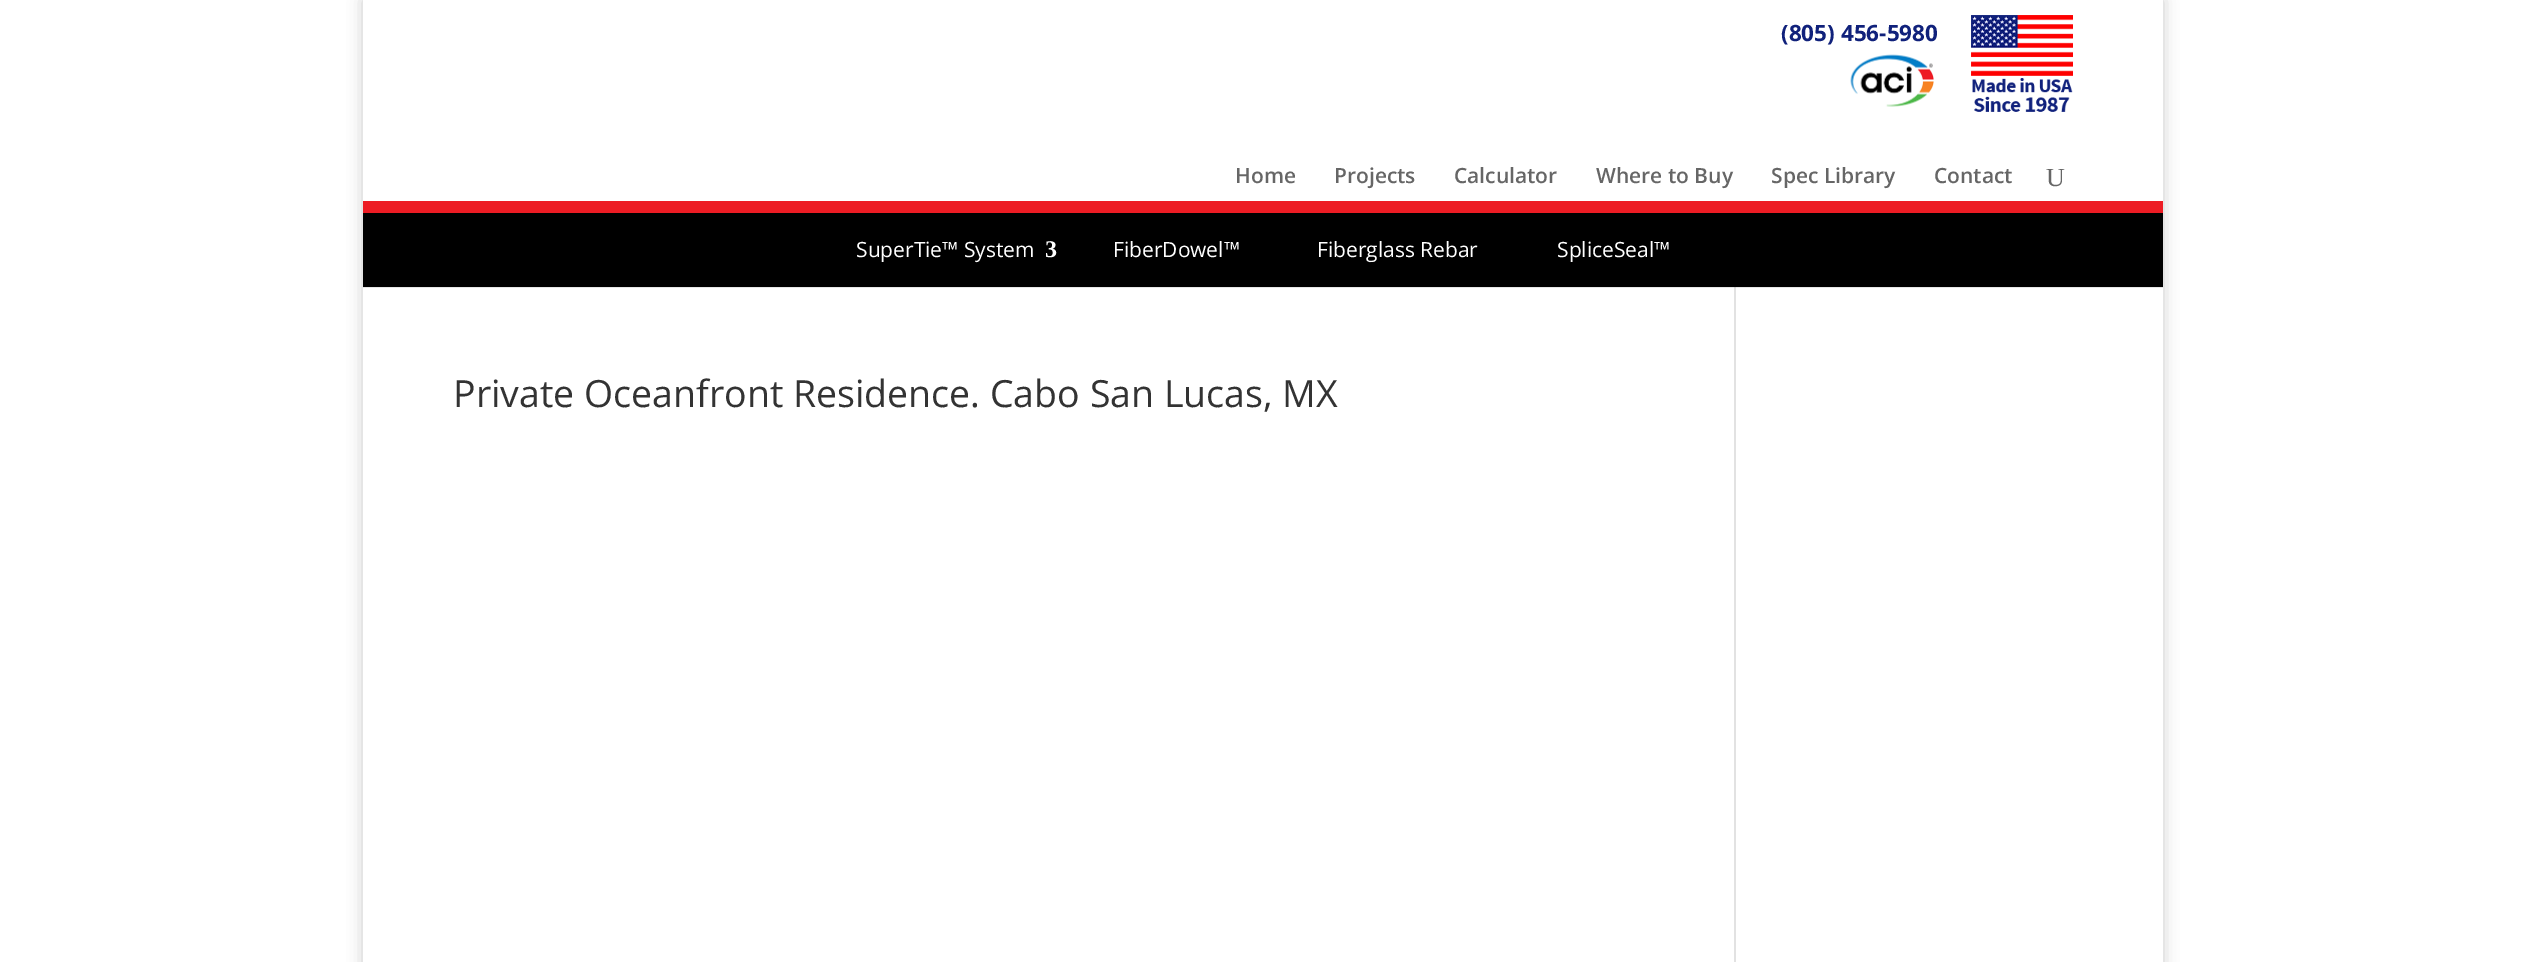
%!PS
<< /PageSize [2526 962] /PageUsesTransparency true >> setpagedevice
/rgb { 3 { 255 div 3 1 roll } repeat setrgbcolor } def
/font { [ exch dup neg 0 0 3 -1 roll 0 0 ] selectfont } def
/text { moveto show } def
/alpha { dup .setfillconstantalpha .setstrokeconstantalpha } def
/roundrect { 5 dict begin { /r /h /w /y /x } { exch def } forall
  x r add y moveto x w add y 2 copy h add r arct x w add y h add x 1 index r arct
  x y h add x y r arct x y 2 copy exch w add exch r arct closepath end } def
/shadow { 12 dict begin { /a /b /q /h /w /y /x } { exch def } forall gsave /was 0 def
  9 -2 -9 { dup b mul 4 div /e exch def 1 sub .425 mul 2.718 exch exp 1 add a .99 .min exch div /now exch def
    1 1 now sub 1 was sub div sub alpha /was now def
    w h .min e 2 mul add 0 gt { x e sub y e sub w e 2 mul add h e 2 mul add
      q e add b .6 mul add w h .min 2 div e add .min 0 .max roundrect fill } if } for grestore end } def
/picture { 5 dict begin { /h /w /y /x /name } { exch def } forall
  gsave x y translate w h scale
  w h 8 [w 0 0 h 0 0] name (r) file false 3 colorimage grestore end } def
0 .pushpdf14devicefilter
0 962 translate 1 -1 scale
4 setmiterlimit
255 255 255 rgb
0 0 2526 962 rectfill
230 230 230 rgb
363 287 1800 1 rectfill
gsave
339 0 moveto 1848 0 rlineto 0 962 rlineto -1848 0 rlineto closepath 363 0 moveto 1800 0 rlineto 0 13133 rlineto -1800 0 rlineto closepath eoclip newpath
0 0 0 rgb
363 0 1800 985 0 7.5 0.2 shadow
grestore
(img_01.rgb) 1971 15 102 97 picture
(img_02.rgb) 1850 54 84 53 picture
237 28 36 rgb
363 201 1800 12 rectfill
0 0 0 rgb
363 213 1800 74 rectfill
226 226 226 rgb
1734 287 2 675 rectfill
203 203 203 rgb
1734 287 2 1 rectfill
/OpenSans-Bold 22.5 font
16 33 123 rgb
(\(805\) 456-5980) 1781 41 text
/OpenSans-SemiBold 21 font
102 102 102 rgb
(Home) 1235 183 text
(Projects) 1334 183 text
(Calculator) 1454 183 text
(Where to Buy) 1596 183 text
(Spec Library) 1771 183 text
(Contact) 1934 183 text
/LiberationSerif-Regular 26 font
(U) 2046 186 text
/OpenSans-Regular 21 font
255 255 255 rgb
(SuperTie™ System) 856 257 text
/LiberationSerif-Bold 24 font
(3) 1045 257 text
/OpenSans-Regular 21 font
(FiberDowel™) 1113 257 text
(Fiberglass Rebar) 1317 257 text
(SpliceSeal™) 1557 257 text
/OpenSans-Regular 37.5 font
51 51 51 rgb
(Private Oceanfront Residence. Cabo San Lucas, MX) 453 407 text
.poppdf14devicefilter showpage
